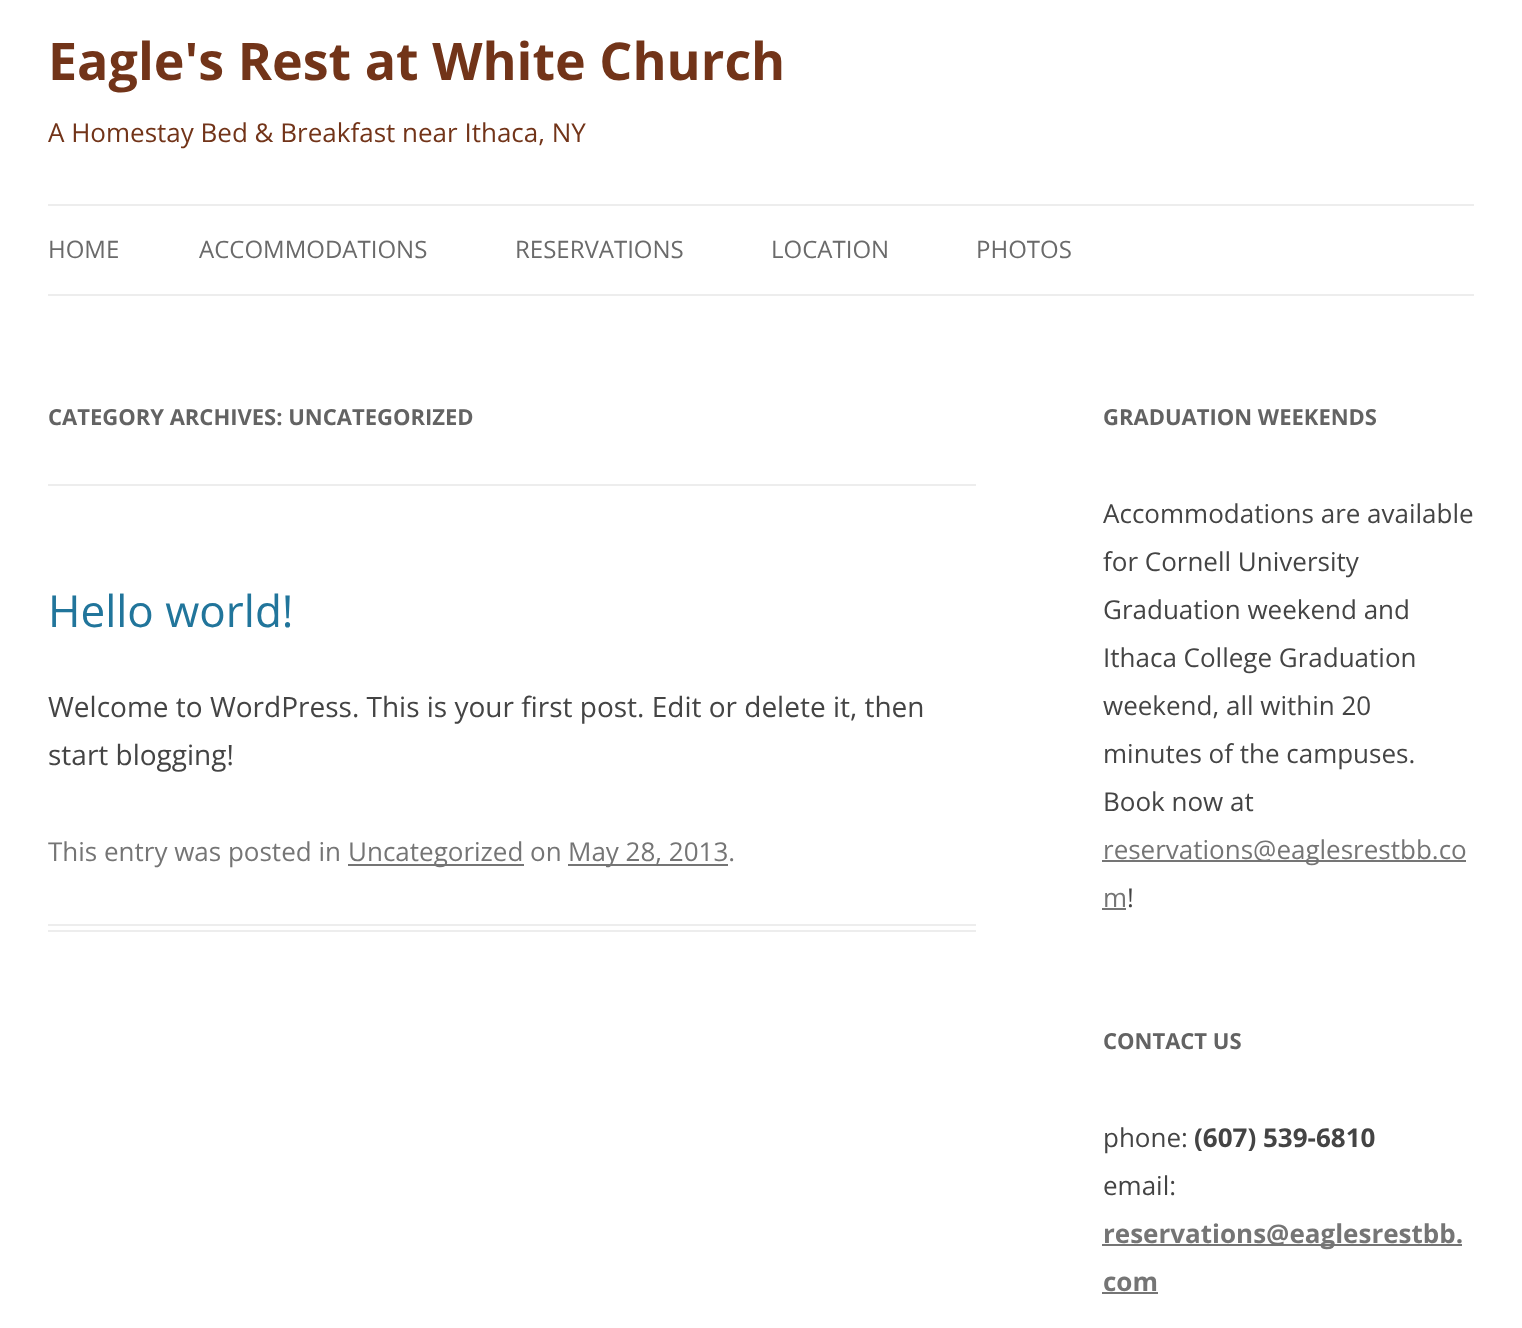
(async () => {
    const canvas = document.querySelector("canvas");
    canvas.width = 1522;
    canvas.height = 1328;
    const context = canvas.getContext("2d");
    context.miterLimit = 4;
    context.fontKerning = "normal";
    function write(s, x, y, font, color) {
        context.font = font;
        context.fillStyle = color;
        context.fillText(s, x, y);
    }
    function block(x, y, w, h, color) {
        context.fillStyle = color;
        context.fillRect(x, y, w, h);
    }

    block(0, 0, 1522, 1328, "rgb(255, 255, 255)");
    write("Eagle's Rest at White Church", 48, 80, "bold 52px Open Sans", "rgb(114, 52, 25)");
    write("A Homestay Bed & Breakfast near Ithaca, NY", 48, 142, "26px Open Sans", "rgb(114, 52, 25)");
    block(48, 204, 1426, 2, "rgb(237, 237, 237)");
    block(48, 294, 1426, 2, "rgb(237, 237, 237)");
    write("HOME", 48, 258, "24px Open Sans", "rgb(106, 106, 106)");
    write("ACCOMMODATIONS", 199, 258, "24px Open Sans", "rgb(106, 106, 106)");
    write("RESERVATIONS", 515, 258, "24px Open Sans", "rgb(106, 106, 106)");
    write("LOCATION", 771, 258, "24px Open Sans", "rgb(106, 106, 106)");
    write("PHOTOS", 976, 258, "24px Open Sans", "rgb(106, 106, 106)");
    block(48, 484, 928, 2, "rgb(237, 237, 237)");
    write("CATEGORY ARCHIVES: UNCATEGORIZED", 48, 425, "bold 22px Open Sans", "rgb(99, 99, 99)");
    block(48, 924, 928, 2, "rgb(237, 237, 237)");
    block(48, 930, 928, 2, "rgb(237, 237, 237)");
    write("Hello world!", 48, 627, "44px Open Sans", "rgb(33, 117, 155)");
    write("Welcome to WordPress. This is your first post. Edit or delete it, then", 48, 717, "28px Open Sans", "rgb(68, 68, 68)");
    write("start blogging!", 48, 765, "28px Open Sans", "rgb(68, 68, 68)");
    write("This entry was posted in", 48, 861, "26px Open Sans", "rgb(117, 117, 117)");
    block(348, 864, 176, 2, "rgb(117, 117, 117)");
    write("Uncategorized on", 348, 861, "26px Open Sans", "rgb(117, 117, 117)");
    block(568, 864, 160, 2, "rgb(117, 117, 117)");
    write("May 28, 2013.", 568, 861, "26px Open Sans", "rgb(117, 117, 117)");
    write("GRADUATION WEEKENDS", 1103, 425, "bold 22px Open Sans", "rgb(99, 99, 99)");
    write("Accommodations are available", 1103, 523, "26px Open Sans", "rgb(68, 68, 68)");
    write("for Cornell University", 1103, 571, "26px Open Sans", "rgb(68, 68, 68)");
    write("Graduation weekend and", 1103, 619, "26px Open Sans", "rgb(68, 68, 68)");
    write("Ithaca College Graduation", 1103, 667, "26px Open Sans", "rgb(68, 68, 68)");
    write("weekend, all within 20", 1103, 715, "26px Open Sans", "rgb(68, 68, 68)");
    write("minutes of the campuses.", 1103, 763, "26px Open Sans", "rgb(68, 68, 68)");
    write("Book now at", 1103, 811, "26px Open Sans", "rgb(68, 68, 68)");
    block(1102, 860, 364, 2, "rgb(117, 117, 117)");
    write("reservations@eaglesrestbb.co", 1103, 859, "26px Open Sans", "rgb(117, 117, 117)");
    write("m", 1103, 907, "26px Open Sans", "rgb(117, 117, 117)");
    block(1102, 908, 24, 2, "rgb(117, 117, 117)");
    write("!", 1127, 907, "26px Open Sans", "rgb(68, 68, 68)");
    write("CONTACT US", 1103, 1049, "bold 22px Open Sans", "rgb(99, 99, 99)");
    write("phone:", 1103, 1147, "26px Open Sans", "rgb(68, 68, 68)");
    write("(607) 539-6810", 1194, 1147, "bold 26px Open Sans", "rgb(68, 68, 68)");
    write("email:", 1103, 1195, "26px Open Sans", "rgb(68, 68, 68)");
    block(1102, 1244, 360, 2, "rgb(117, 117, 117)");
    write("reservations@eaglesrestbb.", 1103, 1243, "bold 26px Open Sans", "rgb(117, 117, 117)");
    write("com", 1103, 1291, "bold 26px Open Sans", "rgb(117, 117, 117)");
    block(1102, 1292, 56, 2, "rgb(117, 117, 117)");
})();
